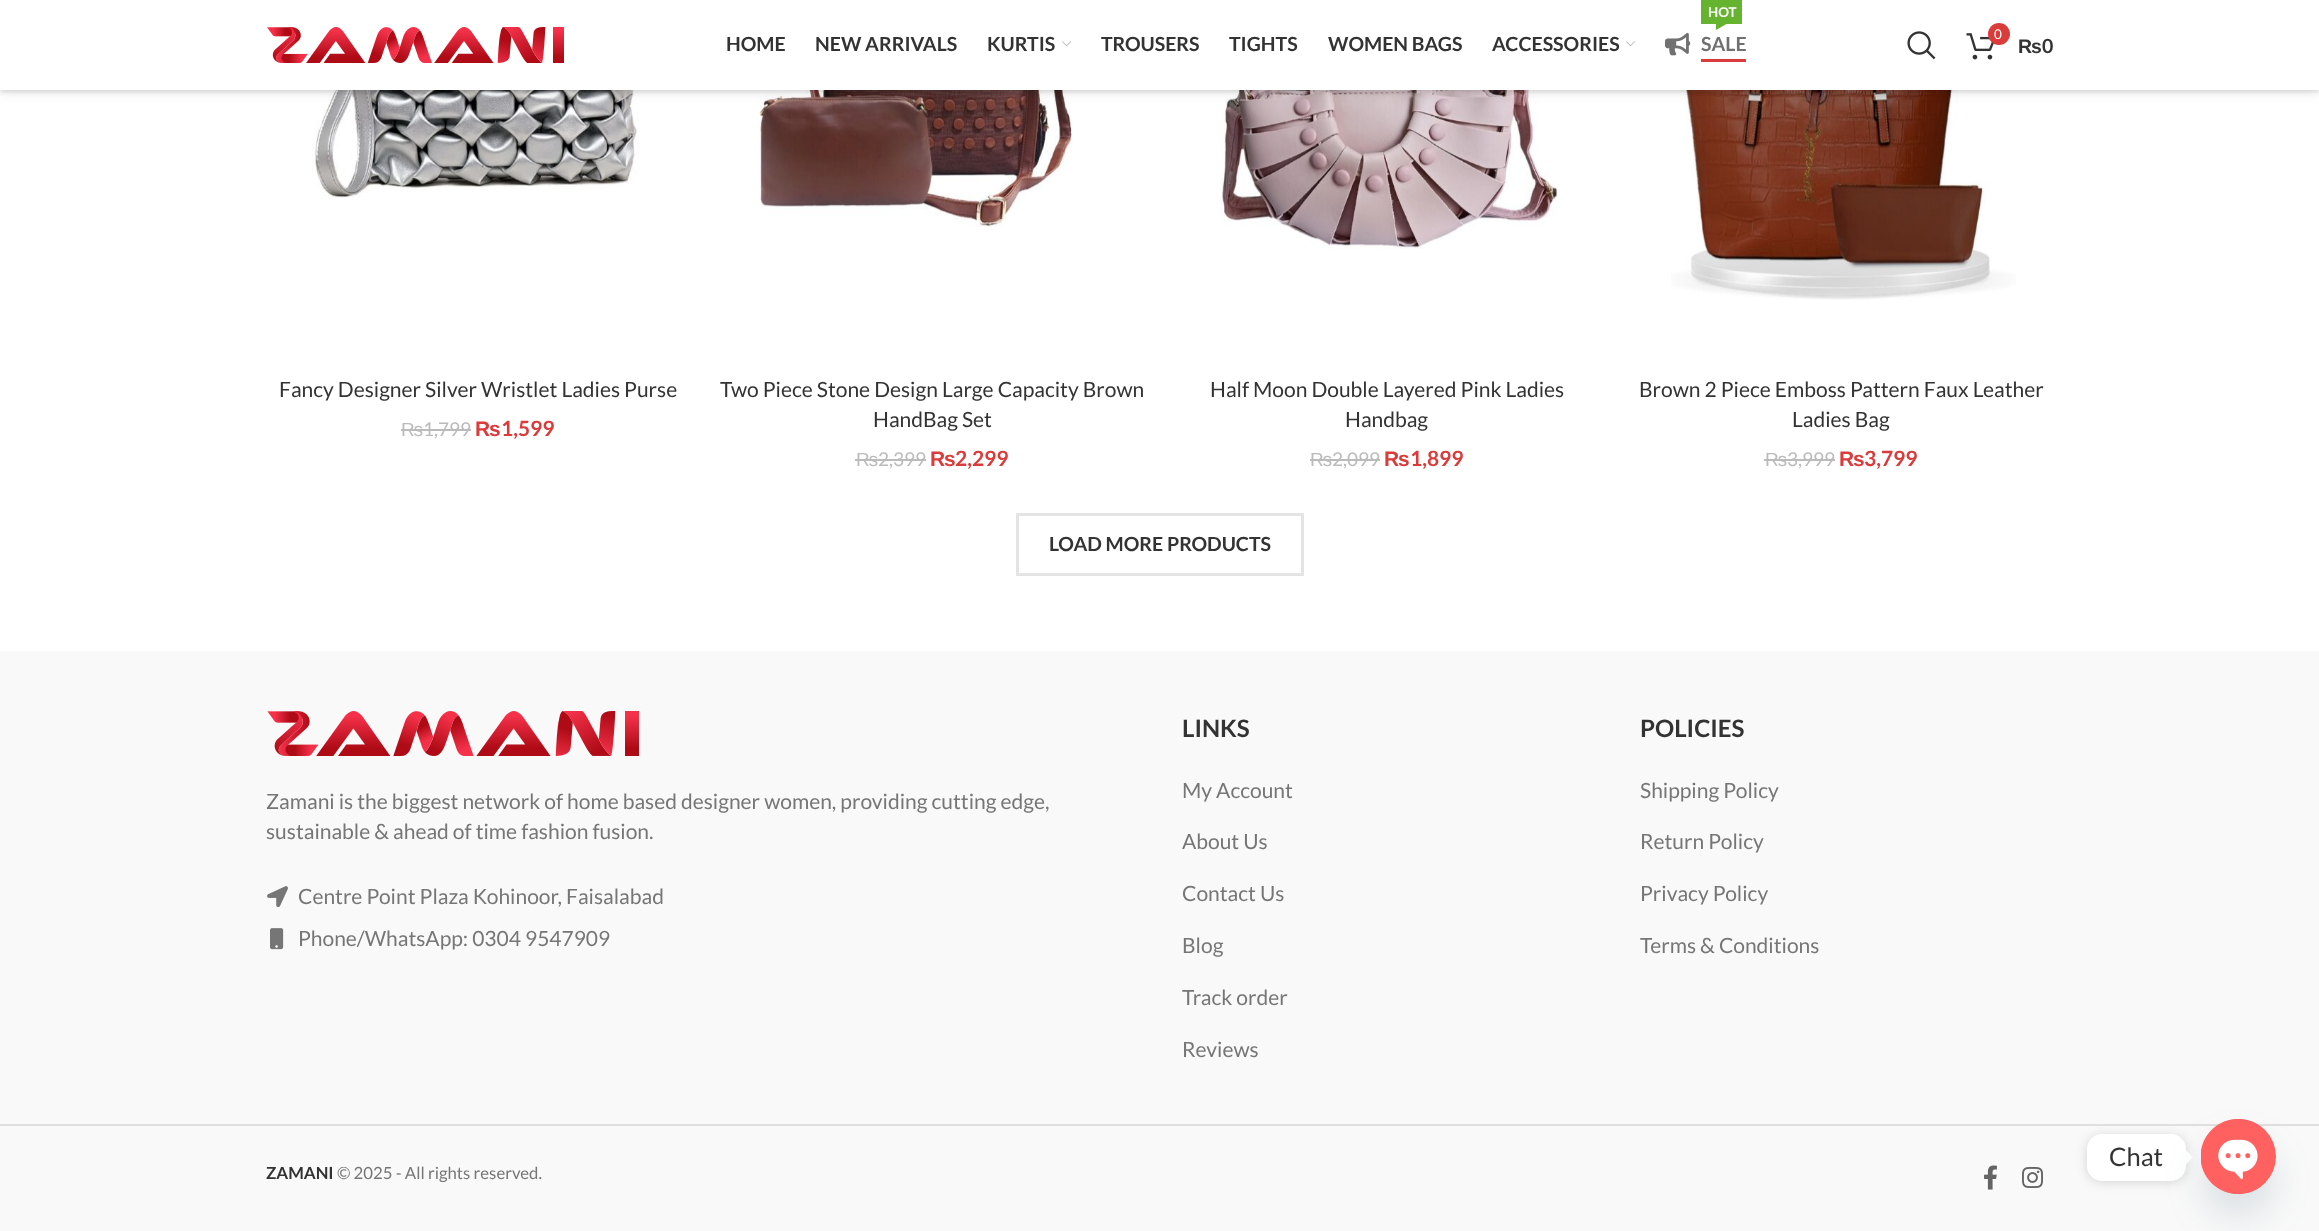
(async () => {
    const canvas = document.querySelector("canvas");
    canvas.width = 2319;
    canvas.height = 1231;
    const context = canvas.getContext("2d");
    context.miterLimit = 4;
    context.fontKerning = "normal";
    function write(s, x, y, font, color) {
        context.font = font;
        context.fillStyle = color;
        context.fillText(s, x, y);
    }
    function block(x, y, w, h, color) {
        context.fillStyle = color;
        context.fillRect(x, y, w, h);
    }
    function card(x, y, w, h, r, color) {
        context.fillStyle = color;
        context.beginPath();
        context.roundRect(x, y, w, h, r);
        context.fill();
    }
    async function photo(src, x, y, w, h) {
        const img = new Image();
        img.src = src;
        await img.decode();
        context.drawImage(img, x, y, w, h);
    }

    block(0, 0, 2319, 1231, "rgb(255, 255, 255)");
    await photo("media/6.png", 312, 90, 329, 108);
    await photo("media/7.png", 754, 90, 318, 137);
    await photo("media/8.png", 1220, 90, 339, 159);
    await photo("media/9.png", 1671, 90, 345, 210);
    context.fillStyle = "rgba(0, 0, 0, 0.1)";
    context.filter = "blur(2px)";
    context.beginPath();
    context.rect(0, 2, 2319, 90);
    context.fill();
    context.filter = "none";
    context.filter = "blur(6px)";
    context.beginPath();
    context.rect(0, 2, 2319, 90);
    context.fill();
    context.filter = "none";
    block(0, 0, 2319, 90, "rgb(255, 255, 255)");
    await photo("media/1.png", 267, 27, 297, 36);
    write("HOME", 726, 51, "bold 19.5px Lato", "rgb(51, 51, 51)");
    write("NEW ARRIVALS", 815, 51, "bold 19.5px Lato", "rgb(51, 51, 51)");
    write("KURTIS", 987, 51, "bold 19.5px Lato", "rgb(51, 51, 51)");
    await photo("media/2.png", 1062, 41, 9, 6);
    write("TROUSERS", 1101, 51, "bold 19.5px Lato", "rgb(51, 51, 51)");
    write("TIGHTS", 1229, 51, "bold 19.5px Lato", "rgb(51, 51, 51)");
    write("WOMEN BAGS", 1328, 51, "bold 19.5px Lato", "rgb(51, 51, 51)");
    write("ACCESSORIES", 1492, 51, "bold 19.5px Lato", "rgb(51, 51, 51)");
    await photo("media/2.png", 1626, 41, 9, 6);
    block(1701, 0, 41, 24, "rgb(101, 179, 46)");
    write("HOT", 1708, 17, "bold 13.5px Lato", "rgb(255, 255, 255)");
    context.fillStyle = "rgb(101, 179, 46)";
    context.beginPath();
    context.moveTo(1716, 24);
    context.lineTo(1726.5, 24);
    context.lineTo(1716, 30);
    context.closePath();
    context.fill();
    await photo("media/3.png", 1665, 32, 26, 24);
    write("SALE", 1701, 51, "bold 19.5px Lato", "rgb(112, 112, 112)");
    block(1701, 59, 45, 3, "rgb(218, 60, 60)");
    await photo("media/4.png", 1907, 31, 29, 29);
    await photo("media/5.png", 1966, 33, 28, 27);
    context.beginPath();
    context.arc(1999, 34, 11, 0, Math.PI * 2);
    context.fill();
    write("0", 1994, 39, "13.5px Lato", "rgb(255, 255, 255)");
    write("₨", 2018, 53, "bold 19.5px Liberation Sans", "rgb(51, 51, 51)");
    write("0", 2042, 53, "bold 19.5px Lato", "rgb(51, 51, 51)");
    write("Fancy Designer Silver Wristlet Ladies Purse", 279, 397, "21px Lato", "rgb(51, 51, 51)");
    write("₨", 401, 436, "19px Liberation Sans", "rgb(187, 187, 187)");
    block(401, 429, 22, 2, "rgb(187, 187, 187)");
    block(423, 429, 48, 2, "rgb(187, 187, 187)");
    write("1,799", 423, 436, "19px Lato", "rgb(187, 187, 187)");
    write("₨", 475, 436, "bold 21px Liberation Sans", "rgb(218, 60, 60)");
    write("1,599", 501, 436, "bold 21px Lato", "rgb(218, 60, 60)");
    write("Two Piece Stone Design Large Capacity Brown", 720, 397, "21px Lato", "rgb(51, 51, 51)");
    write("HandBag Set", 873, 427, "21px Lato", "rgb(51, 51, 51)");
    write("₨", 856, 466, "19px Liberation Sans", "rgb(187, 187, 187)");
    block(855, 459, 23, 2, "rgb(187, 187, 187)");
    block(878, 459, 48, 2, "rgb(187, 187, 187)");
    write("2,399", 878, 466, "19px Lato", "rgb(187, 187, 187)");
    write("₨", 930, 466, "bold 21px Liberation Sans", "rgb(218, 60, 60)");
    write("2,299", 955, 466, "bold 21px Lato", "rgb(218, 60, 60)");
    write("Half Moon Double Layered Pink Ladies", 1210, 397, "21px Lato", "rgb(51, 51, 51)");
    write("Handbag", 1345, 427, "21px Lato", "rgb(51, 51, 51)");
    write("₨", 1310, 466, "19px Liberation Sans", "rgb(187, 187, 187)");
    block(1310, 459, 22, 2, "rgb(187, 187, 187)");
    block(1332, 459, 48, 2, "rgb(187, 187, 187)");
    write("2,099", 1332, 466, "19px Lato", "rgb(187, 187, 187)");
    write("₨", 1384, 466, "bold 21px Liberation Sans", "rgb(218, 60, 60)");
    write("1,899", 1410, 466, "bold 21px Lato", "rgb(218, 60, 60)");
    write("Brown 2 Piece Emboss Pattern Faux Leather", 1639, 397, "21px Lato", "rgb(51, 51, 51)");
    write("Ladies Bag", 1792, 427, "21px Lato", "rgb(51, 51, 51)");
    write("₨", 1765, 466, "19px Liberation Sans", "rgb(187, 187, 187)");
    block(1764, 459, 23, 2, "rgb(187, 187, 187)");
    block(1787, 459, 48, 2, "rgb(187, 187, 187)");
    write("3,999", 1787, 466, "19px Lato", "rgb(187, 187, 187)");
    write("₨", 1839, 466, "bold 21px Liberation Sans", "rgb(218, 60, 60)");
    write("3,799", 1864, 466, "bold 21px Lato", "rgb(218, 60, 60)");
    context.strokeStyle = "rgb(228, 228, 228)";
    context.lineWidth = 3;
    context.strokeRect(1017.5, 514.5, 285, 60);
    write("LOAD MORE PRODUCTS", 1049, 551, "bold 19.5px Lato", "rgb(51, 51, 51)");
    block(0, 651, 2319, 580, "rgb(249, 249, 249)");
    await photo("media/10.png", 267, 711, 372, 45);
    write("Zamani is the biggest network of home based designer women, providing cutting edge,", 266, 809, "21px Lato", "rgb(118, 118, 118)");
    write("sustainable & ahead of time fashion fusion.", 266, 839, "21px Lato", "rgb(118, 118, 118)");
    await photo("media/11.png", 267, 886, 21, 22);
    write("Centre Point Plaza Kohinoor, Faisalabad", 298, 904, "21px Lato", "rgb(118, 118, 118)");
    await photo("media/12.png", 270, 928, 14, 22);
    write("Phone/WhatsApp: 0304 9547909", 298, 946, "21px Lato", "rgb(118, 118, 118)");
    write("LINKS", 1182, 737, "bold 24px Lato", "rgb(51, 51, 51)");
    write("My Account", 1182, 798, "21px Lato", "rgb(118, 118, 118)");
    write("About Us", 1182, 849, "21px Lato", "rgb(118, 118, 118)");
    write("Contact Us", 1182, 901, "21px Lato", "rgb(118, 118, 118)");
    write("Blog", 1182, 953, "21px Lato", "rgb(118, 118, 118)");
    write("Track order", 1182, 1005, "21px Lato", "rgb(118, 118, 118)");
    write("Reviews", 1182, 1057, "21px Lato", "rgb(118, 118, 118)");
    write("POLICIES", 1640, 737, "bold 24px Lato", "rgb(51, 51, 51)");
    write("Shipping Policy", 1640, 798, "21px Lato", "rgb(118, 118, 118)");
    write("Return Policy", 1640, 849, "21px Lato", "rgb(118, 118, 118)");
    write("Privacy Policy", 1640, 901, "21px Lato", "rgb(118, 118, 118)");
    write("Terms & Conditions", 1640, 953, "21px Lato", "rgb(118, 118, 118)");
    block(0, 1124, 2319, 2, "rgb(223, 223, 223)");
    write("ZAMANI", 266, 1179, "bold 16.75px Lato", "rgb(51, 51, 51)");
    write("© 2025 - All rights reserved.", 337, 1179, "16.75px Lato", "rgb(118, 118, 118)");
    await photo("media/13.png", 1984, 1165, 13, 25);
    await photo("media/14.png", 2022, 1167, 21, 21);
    context.fillStyle = "rgba(0, 0, 0, 0.15)";
    context.filter = "blur(6px)";
    context.beginPath();
    context.roundRect(2087, 1136, 99, 46, 15);
    context.fill();
    context.filter = "none";
    card(2087, 1134, 99, 47, 15, "rgb(255, 255, 255)");
    write("Chat", 2109, 1166, "25.5px Lato", "rgb(51, 51, 51)");
    context.fillStyle = "rgb(255, 255, 255)";
    context.beginPath();
    context.moveTo(2185.5, 1165);
    context.lineTo(2185.5, 1150);
    context.lineTo(2193, 1157);
    context.closePath();
    context.fill();
    context.fillStyle = "rgba(73, 104, 126, 0.16)";
    context.filter = "blur(18px)";
    context.beginPath();
    context.roundRect(2201, 1143, 75, 75, 37.5);
    context.fill();
    context.filter = "none";
    context.fillStyle = "rgb(255, 96, 96)";
    context.beginPath();
    context.arc(2238.5, 1156.5, 37.5, 0, Math.PI * 2);
    context.fill();
    await photo("media/15.png", 2201, 1119, 65, 75);
})();
